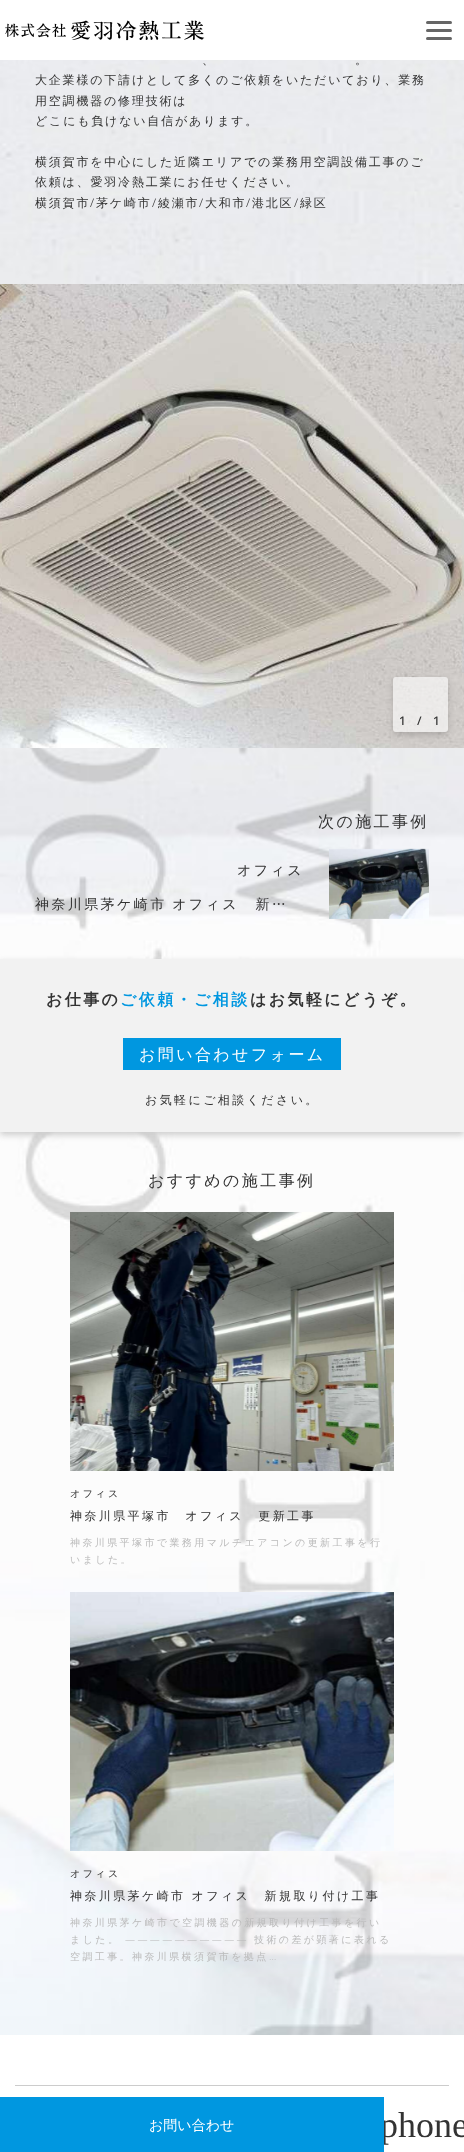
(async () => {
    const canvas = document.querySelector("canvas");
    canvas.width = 464;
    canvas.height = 2152;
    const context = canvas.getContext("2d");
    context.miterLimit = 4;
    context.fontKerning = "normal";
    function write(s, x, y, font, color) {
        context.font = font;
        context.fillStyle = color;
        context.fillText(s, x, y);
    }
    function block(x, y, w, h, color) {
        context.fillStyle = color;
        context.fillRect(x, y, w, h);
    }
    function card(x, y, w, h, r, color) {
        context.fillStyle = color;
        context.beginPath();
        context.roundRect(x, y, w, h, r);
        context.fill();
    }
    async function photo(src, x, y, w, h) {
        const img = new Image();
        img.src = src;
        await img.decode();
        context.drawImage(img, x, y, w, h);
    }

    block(0, 0, 464, 2152, "rgb(255, 255, 255)");
    await photo("media/1.png", 5, 20, 200, 21);
    card(426, 21, 26, 3, 1.5, "rgb(102, 102, 102)");
    card(426, 29, 26, 3, 1.5, "rgb(102, 102, 102)");
    card(426, 37, 26, 3, 1.5, "rgb(102, 102, 102)");
    await photo("media/2.png", 0, 60, 464, 1975);
    context.letterSpacing = "1.8px";
    write("、", 202, 64, "500 12px WenQuanYi Zen Hei", "rgb(51, 51, 51)");
    write("。", 355, 64, "500 12px WenQuanYi Zen Hei", "rgb(51, 51, 51)");
    write("大企業様の下請けとして多くのご依頼をいただいており、業務", 35, 84, "500 12px WenQuanYi Zen Hei", "rgb(51, 51, 51)");
    write("用空調機器の修理技術は", 35, 105, "500 12px WenQuanYi Zen Hei", "rgb(51, 51, 51)");
    write("どこにも負けない自信があります。", 35, 125, "500 12px WenQuanYi Zen Hei", "rgb(51, 51, 51)");
    write("横須賀市を中心にした近隣エリアでの業務用空調設備工事のご", 35, 166, "500 12px WenQuanYi Zen Hei", "rgb(51, 51, 51)");
    write("依頼は、愛羽冷熱工業にお任せください。", 35, 186, "500 12px WenQuanYi Zen Hei", "rgb(51, 51, 51)");
    write("横須賀市", 35, 207, "500 12px WenQuanYi Zen Hei", "rgb(51, 51, 51)");
    write("/", 90, 207, "300 12px Noto Sans", "rgb(51, 51, 51)");
    write("茅ケ崎市", 96, 207, "500 12px WenQuanYi Zen Hei", "rgb(51, 51, 51)");
    write("/", 152, 207, "300 12px Noto Sans", "rgb(51, 51, 51)");
    write("綾瀬市", 158, 207, "500 12px WenQuanYi Zen Hei", "rgb(51, 51, 51)");
    write("/", 199, 207, "300 12px Noto Sans", "rgb(51, 51, 51)");
    write("大和市", 205, 207, "500 12px WenQuanYi Zen Hei", "rgb(51, 51, 51)");
    write("/", 246, 207, "300 12px Noto Sans", "rgb(51, 51, 51)");
    write("港北区", 252, 207, "500 12px WenQuanYi Zen Hei", "rgb(51, 51, 51)");
    write("/", 294, 207, "300 12px Noto Sans", "rgb(51, 51, 51)");
    write("緑区", 300, 207, "500 12px WenQuanYi Zen Hei", "rgb(51, 51, 51)");
    await photo("media/3.png", 0, 284, 464, 464);
    context.save();
    context.beginPath();
    context.moveTo(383, 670);
    context.lineTo(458, 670);
    context.lineTo(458, 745);
    context.lineTo(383, 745);
    context.closePath();
    context.moveTo(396, 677);
    context.lineTo(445, 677);
    context.bezierCurveTo(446.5, 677, 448, 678.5, 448, 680);
    context.lineTo(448, 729);
    context.bezierCurveTo(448, 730.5, 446.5, 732, 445, 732);
    context.lineTo(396, 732);
    context.bezierCurveTo(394.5, 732, 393, 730.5, 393, 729);
    context.lineTo(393, 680);
    context.bezierCurveTo(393, 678.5, 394.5, 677, 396, 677);
    context.closePath();
    context.clip("evenodd");
    context.fillStyle = "rgba(0, 0, 0, 0.16)";
    context.filter = "blur(3px)";
    context.beginPath();
    context.roundRect(393, 680, 55, 55, 3);
    context.fill();
    context.filter = "none";
    context.restore();
    card(393, 677, 55, 55, 3, "rgba(255, 255, 255, 0.6)");
    context.letterSpacing = "2.4px";
    write("1", 399, 725, "500 12px Noto Sans", "rgb(51, 51, 51)");
    write("/", 417, 725, "500 12px Noto Sans", "rgb(51, 51, 51)");
    write("1", 433, 725, "500 12px Noto Sans", "rgb(51, 51, 51)");
    write("次の施工事例", 318, 827, "500 16px WenQuanYi Zen Hei", "rgb(51, 51, 51)");
    write("オフィス", 237, 875, "500 14px WenQuanYi Zen Hei", "rgb(51, 51, 51)");
    context.wordSpacing = "-1px";
    write("神奈川県茅ケ崎市 オフィス　新…", 35, 909, "500 14px WenQuanYi Zen Hei", "rgb(51, 51, 51)");
    await photo("media/4.png", 329, 848, 100, 71);
    context.fillStyle = "rgb(204, 204, 204)";
    context.filter = "blur(3px)";
    context.beginPath();
    context.rect(0, 962, 464, 173);
    context.fill();
    context.filter = "none";
    block(0, 959, 464, 173, "rgb(242, 242, 242)");
    context.wordSpacing = "0px";
    write("お仕事の", 46, 1005, "bold 16px WenQuanYi Zen Hei", "rgb(51, 51, 51)");
    write("ご依頼・ご相談", 120, 1005, "bold 16px WenQuanYi Zen Hei", "rgb(0, 151, 224)");
    write("はお気軽にどうぞ。", 250, 1005, "bold 16px WenQuanYi Zen Hei", "rgb(51, 51, 51)");
    block(123, 1038, 218, 32, "rgb(0, 151, 224)");
    write("お問い合わせフォーム", 139, 1060, "500 16px WenQuanYi Zen Hei", "rgb(255, 255, 255)");
    write("お気軽にご相談ください。", 145, 1104, "500 12px WenQuanYi Zen Hei", "rgb(51, 51, 51)");
    write("おすすめの施工事例", 148, 1186, "500 16px WenQuanYi Zen Hei", "rgb(51, 51, 51)");
    await photo("media/5.png", 70, 1212, 324, 259);
    write("オフィス", 70, 1497, "500 10px WenQuanYi Zen Hei", "rgb(51, 51, 51)");
    write("神奈川県平塚市　オフィス　更新工事", 70, 1520, "500 12px WenQuanYi Zen Hei", "rgb(51, 51, 51)");
    write("神奈川県平塚市で業務用マルチエアコンの更新工事を行", 70, 1546, "500 10px WenQuanYi Zen Hei", "rgb(186, 186, 186)");
    write("いました。", 70, 1563, "500 10px WenQuanYi Zen Hei", "rgb(186, 186, 186)");
    await photo("media/6.png", 70, 1592, 324, 259);
    write("オフィス", 70, 1877, "500 10px WenQuanYi Zen Hei", "rgb(51, 51, 51)");
    write("神奈川県茅ケ崎市 オフィス　新規取り付け工事", 70, 1900, "500 12px WenQuanYi Zen Hei", "rgb(51, 51, 51)");
    write("神奈川県茅ケ崎市で空調機器の新規取り付け工事を行い", 70, 1926, "500 10px WenQuanYi Zen Hei", "rgb(186, 186, 186)");
    write("ました。", 70, 1943, "500 10px WenQuanYi Zen Hei", "rgb(186, 186, 186)");
    write("――――――――――", 125, 1943, "300 10px Noto Sans", "rgb(186, 186, 186)");
    write("技術の差が顕著に表れる", 254, 1943, "500 10px WenQuanYi Zen Hei", "rgb(186, 186, 186)");
    write("空調工事。神奈川県横須賀市を拠点", 70, 1960, "500 10px WenQuanYi Zen Hei", "rgb(186, 186, 186)");
    write("…", 269, 1960, "300 10px Noto Sans", "rgb(186, 186, 186)");
    block(15, 2085, 434, 1, "rgb(204, 204, 204)");
    context.letterSpacing = "0px";
    write("phone", 380, 2137, "36px Liberation Serif", "rgb(51, 51, 51)");
    block(0, 2097, 384, 55, "rgb(0, 151, 224)");
    write("お問い合わせ", 149, 2130, "500 14px WenQuanYi Zen Hei", "rgb(255, 255, 255)");
})();
